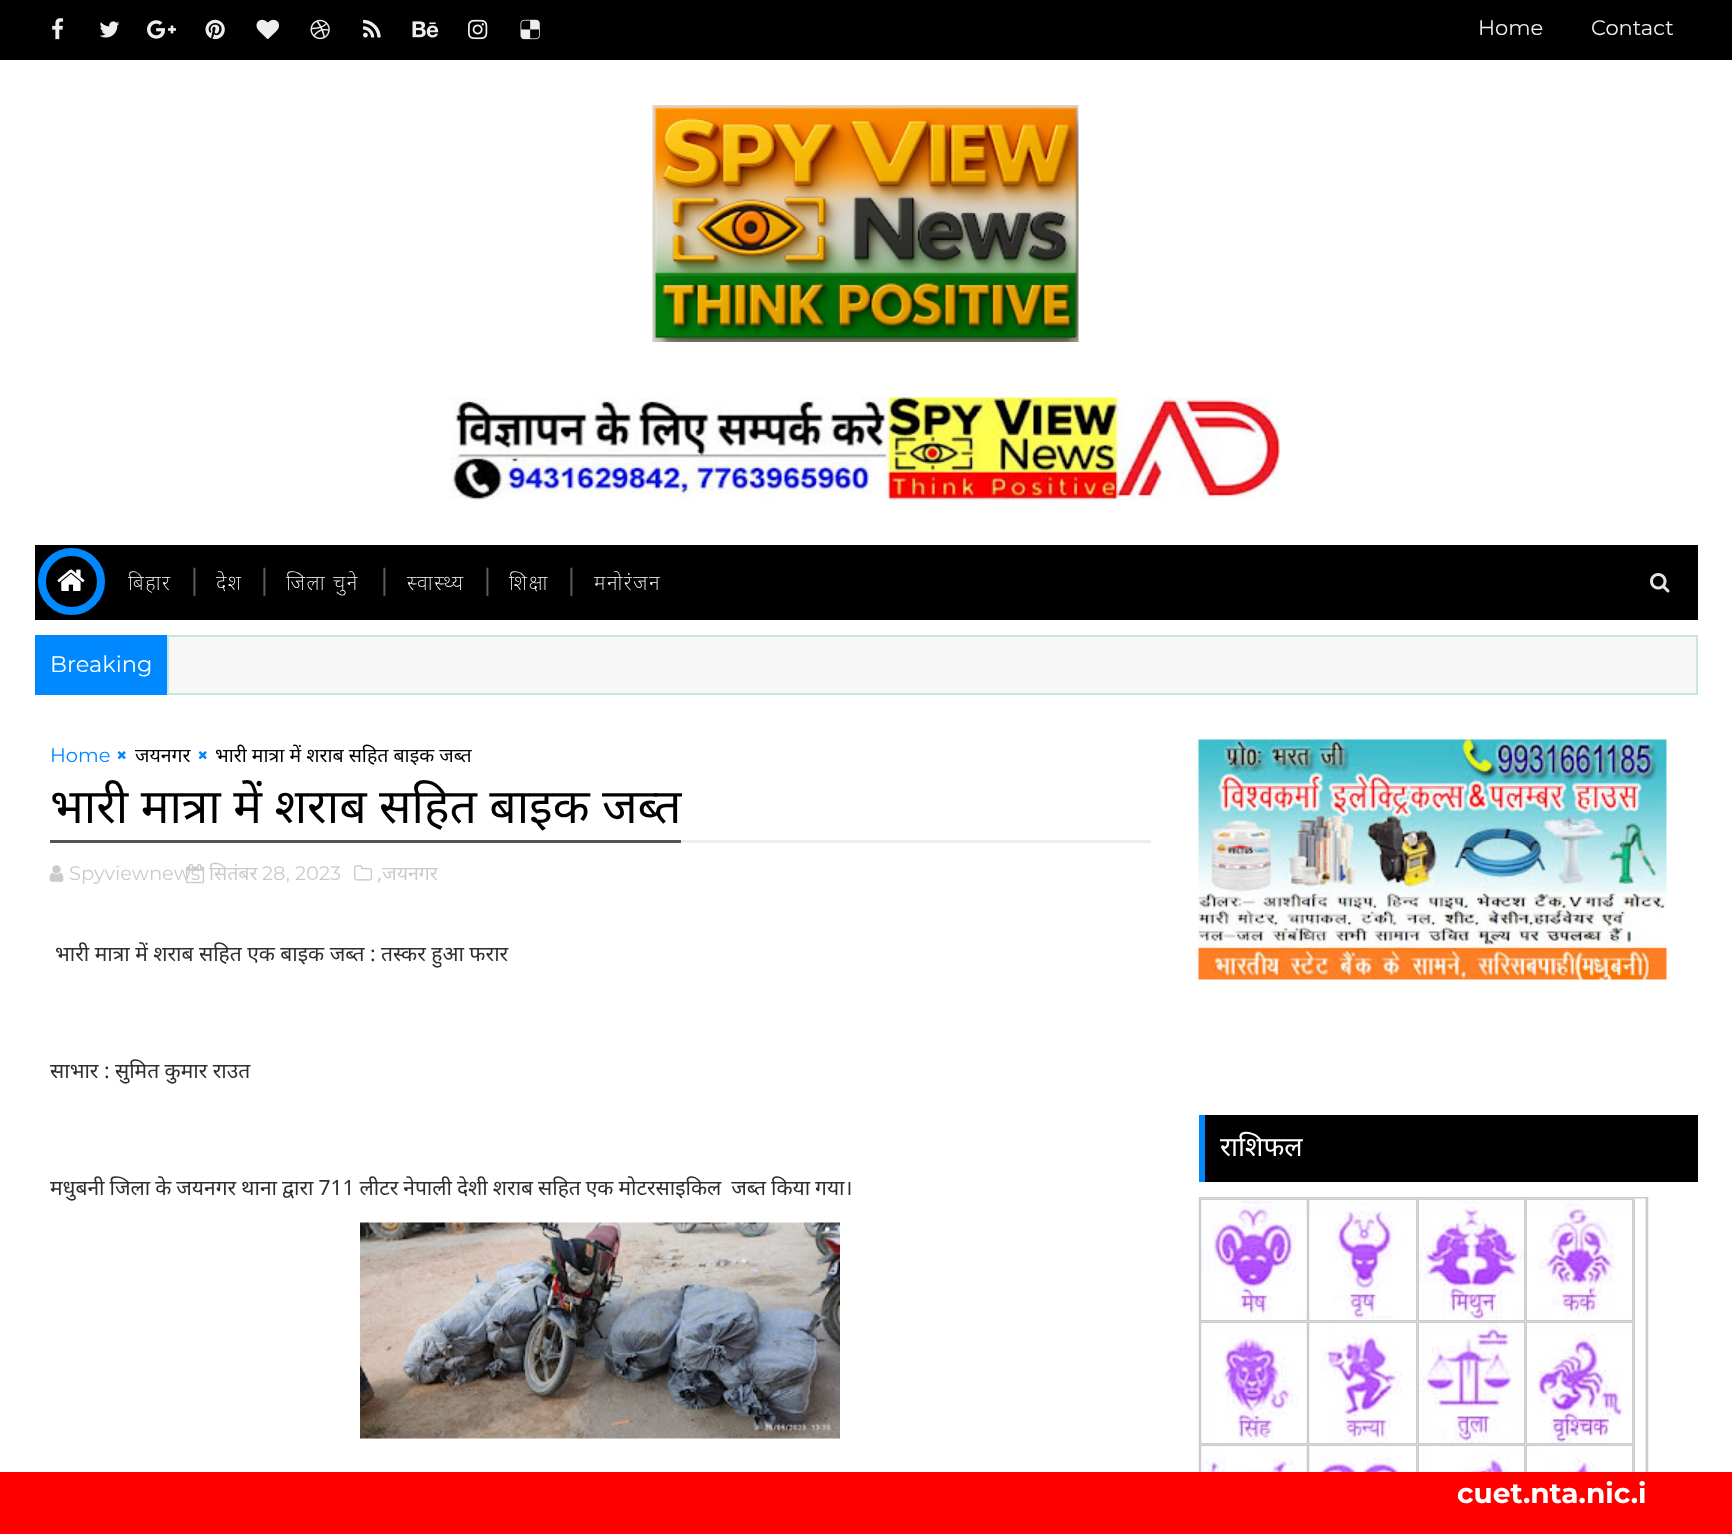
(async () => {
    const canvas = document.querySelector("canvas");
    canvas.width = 1732;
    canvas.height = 1534;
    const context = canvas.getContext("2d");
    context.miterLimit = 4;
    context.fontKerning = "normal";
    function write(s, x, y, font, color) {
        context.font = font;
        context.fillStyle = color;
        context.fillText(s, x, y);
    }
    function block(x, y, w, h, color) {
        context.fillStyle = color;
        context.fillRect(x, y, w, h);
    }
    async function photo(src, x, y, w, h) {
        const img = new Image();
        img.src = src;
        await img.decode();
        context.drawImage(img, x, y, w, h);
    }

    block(0, 0, 1732, 1534, "rgb(255, 255, 255)");
    block(0, 0, 1732, 60, "rgb(0, 0, 0)");
    await photo("media/1.png", 52, 18, 12, 22);
    await photo("media/2.png", 99, 21, 21, 17);
    await photo("media/3.png", 147, 20, 29, 19);
    await photo("media/4.png", 205, 19, 20, 21);
    await photo("media/5.png", 256, 19, 23, 21);
    await photo("media/6.png", 310, 19, 20, 21);
    await photo("media/7.png", 363, 19, 18, 19);
    await photo("media/8.png", 412, 21, 27, 17);
    await photo("media/9.png", 468, 19, 20, 21);
    await photo("media/10.png", 520, 19, 20, 21);
    write("Home", 1478, 35, "21px Montserrat", "rgb(238, 238, 238)");
    write("Contact", 1591, 35, "21px Montserrat", "rgb(238, 238, 238)");
    await photo("media/11.png", 652, 105, 427, 237);
    await photo("media/12.png", 451, 397, 829, 103);
    block(35, 545, 1663, 75, "rgb(0, 0, 0)");
    context.beginPath();
    context.arc(71.5, 581.5, 29.5, 0, Math.PI * 2);
    context.strokeStyle = "rgb(0, 136, 255)";
    context.lineWidth = 8;
    context.stroke();
    await photo("media/13.png", 57, 569, 28, 22);
    context.letterSpacing = "1.5px";
    write("बिहार", 128, 590, "200 21px Noto Sans", "rgb(255, 255, 255)");
    context.letterSpacing = "0px";
    write("|", 190, 590, "30px Montserrat", "rgb(92, 92, 92)");
    context.letterSpacing = "1.5px";
    write("देश", 216, 590, "200 21px Noto Sans", "rgb(255, 255, 255)");
    context.letterSpacing = "0px";
    write("|", 260, 590, "30px Montserrat", "rgb(92, 92, 92)");
    context.letterSpacing = "1.5px";
    write("जिला चुने", 286, 590, "200 21px Noto Sans", "rgb(255, 255, 255)");
    context.letterSpacing = "0px";
    write("|", 380, 590, "30px Montserrat", "rgb(92, 92, 92)");
    context.letterSpacing = "1.5px";
    write("स्वास्थ्य", 407, 590, "200 21px Noto Sans", "rgb(255, 255, 255)");
    context.letterSpacing = "0px";
    write("|", 483, 590, "30px Montserrat", "rgb(92, 92, 92)");
    context.letterSpacing = "1.5px";
    write("शिक्षा", 509, 590, "200 21px Noto Sans", "rgb(255, 255, 255)");
    context.letterSpacing = "0px";
    write("|", 567, 590, "30px Montserrat", "rgb(92, 92, 92)");
    context.letterSpacing = "1.5px";
    write("मनोरंजन", 594, 590, "200 21px Noto Sans", "rgb(255, 255, 255)");
    await photo("media/14.png", 1650, 573, 20, 20);
    block(35, 635, 132, 60, "rgb(0, 136, 255)");
    context.letterSpacing = "0px";
    write("Breaking", 50, 672, "22.5px Montserrat", "rgb(255, 255, 255)");
    context.fillStyle = "rgb(247, 247, 247)";
    context.beginPath();
    context.rect(168, 636, 1529, 58);
    context.fill();
    context.strokeStyle = "rgb(196, 233, 218)";
    context.lineWidth = 2;
    context.stroke();
    write("Home", 50, 762, "19.5px Montserrat", "rgb(0, 136, 255)");
    await photo("media/15.png", 117, 751, 9, 9);
    write("जयनगर", 135, 762, "19.5px Noto Sans", "rgb(0, 0, 0)");
    await photo("media/15.png", 198, 751, 9, 9);
    write("भारी मात्रा में शराब सहित बाइक जब्त", 215, 762, "19.5px Noto Sans", "rgb(0, 0, 0)");
    block(681, 840, 470, 3, "rgb(238, 238, 238)");
    block(50, 840, 631, 3, "rgb(85, 85, 85)");
    write("भारी मात्रा में शराब सहित बाइक जब्त", 50, 823, "48px Noto Sans", "rgb(0, 0, 0)");
    await photo("media/16.png", 49, 865, 15, 17);
    write("Spyviewnews", 69, 880, "19.5px Montserrat", "rgb(203, 203, 203)");
    await photo("media/17.png", 186, 863, 19, 21);
    write("सितंबर", 209, 880, "19.5px Noto Sans", "rgb(203, 203, 203)");
    write("28, 2023", 262, 880, "19.5px Montserrat", "rgb(203, 203, 203)");
    await photo("media/18.png", 354, 865, 19, 16);
    write(",जयनगर", 377, 880, "19.5px Noto Sans", "rgb(203, 203, 203)");
    write("भारी मात्रा में शराब सहित एक बाइक जब्त : तस्कर हुआ फरार", 55, 961, "21px Noto Sans", "rgb(46, 46, 46)");
    write("साभार : सुमित कुमार राउत", 50, 1078, "21px Noto Sans", "rgb(46, 46, 46)");
    context.wordSpacing = "-0.5px";
    write("मधुबनी जिला के जयनगर थाना द्वारा 711 लीटर नेपाली देशी शराब सहित एक मोटरसाइकिल  जब्त किया गया।", 50, 1195, "21px Noto Sans", "rgb(46, 46, 46)");
    await photo("media/19.png", 360, 1222, 480, 217);
    await photo("media/20.png", 1198, 739, 469, 241);
    block(1205, 1115, 493, 67, "rgb(0, 0, 0)");
    block(1199, 1115, 6, 67, "rgb(0, 136, 255)");
    context.wordSpacing = "0px";
    write("राशिफल", 1220, 1156, "27px Noto Sans", "rgb(255, 255, 255)");
    await photo("media/21.png", 1198, 1197, 451, 275);
    block(0, 1472, 1732, 62, "rgb(255, 0, 0)");
    write("cuet.nta.nic.i", 1457, 1503, "bold 28px Montserrat", "rgb(255, 255, 255)");
})();
